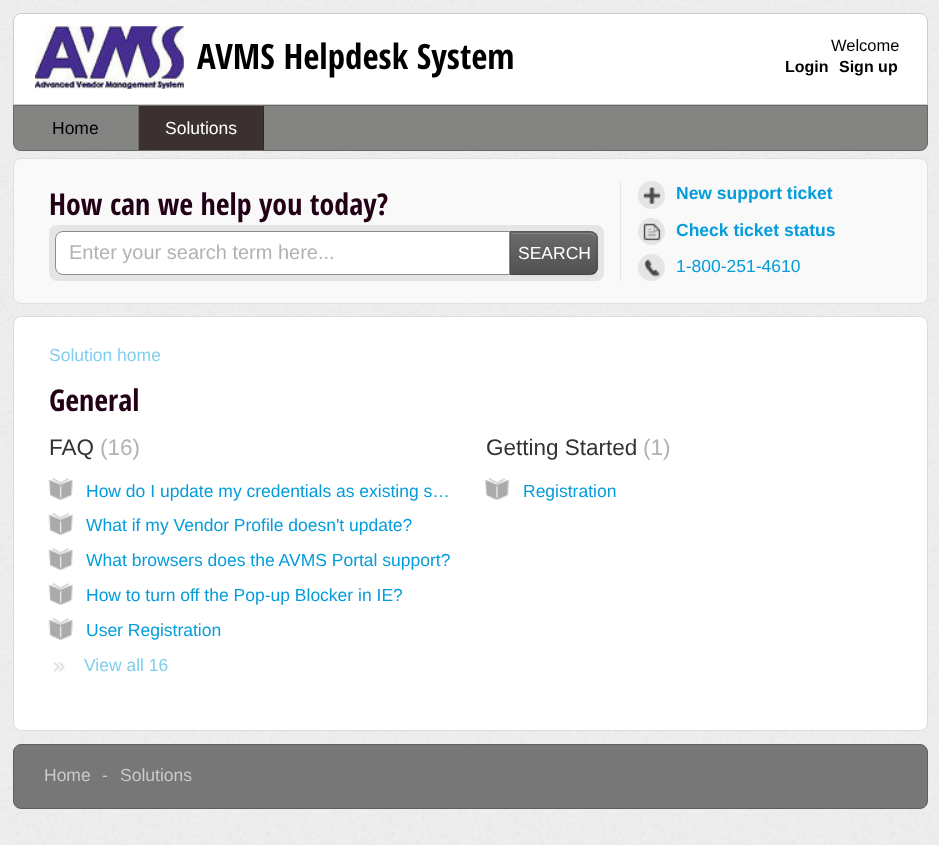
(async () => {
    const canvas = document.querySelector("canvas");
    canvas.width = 939;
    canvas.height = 845;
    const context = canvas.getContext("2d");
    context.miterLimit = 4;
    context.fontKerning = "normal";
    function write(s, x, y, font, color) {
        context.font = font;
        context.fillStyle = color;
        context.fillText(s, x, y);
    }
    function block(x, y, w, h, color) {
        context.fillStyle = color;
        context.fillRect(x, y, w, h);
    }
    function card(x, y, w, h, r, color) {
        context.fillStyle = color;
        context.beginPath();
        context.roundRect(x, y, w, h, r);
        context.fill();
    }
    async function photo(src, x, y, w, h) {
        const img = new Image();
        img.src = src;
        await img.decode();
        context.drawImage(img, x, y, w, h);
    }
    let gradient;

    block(0, 0, 939, 845, "rgb(239, 239, 239)");
    await photo("media/1.png", 0, 0, 939, 845);
    context.fillStyle = "rgb(255, 255, 255)";
    context.beginPath();
    context.roundRect(13, 13, 915, 92, [8, 8, 0, 0]);
    context.fill();
    context.beginPath();
    context.roundRect(13.5, 13.5, 914, 91, [7.5, 7.5, 0, 0]);
    context.strokeStyle = "rgba(0, 0, 0, 0.2)";
    context.stroke();
    await photo("media/2.png", 35, 26, 149, 63);
    write("AVMS Helpdesk System", 197, 69, "bold 35px Open Sans Condensed", "rgb(0, 0, 0)");
    write("Welcome", 831, 51, "16.5px Liberation Sans", "rgb(0, 0, 0)");
    write("Login", 785, 72, "bold 16px Liberation Sans", "rgb(0, 0, 0)");
    write("Sign up", 839, 72, "bold 16px Liberation Sans", "rgb(0, 0, 0)");
    context.fillStyle = "rgb(132, 132, 130)";
    context.beginPath();
    context.roundRect(13, 105, 915, 46, [0, 0, 8, 8]);
    context.fill();
    context.beginPath();
    context.roundRect(13.5, 105.5, 914, 45, [0, 0, 7.5, 7.5]);
    context.stroke();
    block(138, 106, 1, 44, "rgb(106, 106, 104)");
    write("Home", 52, 134, "17.5px Liberation Sans", "rgb(0, 0, 0)");
    block(139, 106, 124, 44, "rgb(59, 49, 49)");
    block(263, 106, 1, 44, "rgb(47, 39, 39)");
    write("Solutions", 165, 134, "17.5px Liberation Sans", "rgb(255, 255, 255)");
    context.fillStyle = "rgb(249, 249, 249)";
    context.beginPath();
    context.roundRect(13.5, 158.5, 914, 145, 7.5);
    context.fill();
    context.strokeStyle = "rgb(224, 224, 224)";
    context.stroke();
    block(620, 181, 1, 100, "rgb(229, 229, 229)");
    write("How can we help you today?", 49, 215, "bold 30px Open Sans Condensed", "rgb(34, 0, 21)");
    card(49, 225, 555, 56, 8, "rgb(229, 229, 229)");
    context.fillStyle = "rgb(255, 255, 255)";
    context.beginPath();
    context.roundRect(55.5, 231.5, 454, 43, [7.5, 0, 0, 7.5]);
    context.fill();
    context.strokeStyle = "rgb(140, 140, 140)";
    context.stroke();
    write("Enter your search term here...", 69, 259, "20px Liberation Sans", "rgb(178, 178, 178)");
    context.fillStyle = "rgba(0, 0, 0, 0.05)";
    context.filter = "blur(1px)";
    context.beginPath();
    context.roundRect(510, 233, 88, 43, 8);
    context.fill();
    context.filter = "none";
    context.fillStyle = "rgb(98, 96, 96)";
    context.beginPath();
    context.roundRect(510, 231, 88, 44, [0, 8, 8, 0]);
    context.fill();
    context.save();
    context.beginPath();
    context.roundRect(510, 231, 88, 44, [0, 8, 8, 0]);
    context.clip();
    gradient = context.createLinearGradient(554, 233, 554, 274);
    gradient.addColorStop(0, "rgb(108, 106, 106)");
    gradient.addColorStop(1, "rgb(82, 81, 81)");
    context.fillStyle = gradient;
    context.fillRect(510, 233, 88, 41);
    context.restore();
    context.fillStyle = "rgb(137, 136, 136)";
    context.beginPath();
    context.moveTo(511, 234);
    context.lineTo(590, 234);
    context.bezierCurveTo(593, 234, 596, 237, 596, 240);
    context.lineTo(596, 239);
    context.bezierCurveTo(596, 236, 593, 233, 590, 233);
    context.lineTo(511, 233);
    context.closePath();
    context.fill();
    context.fillStyle = "rgba(0, 0, 0, 0.1)";
    context.beginPath();
    context.moveTo(511, 232);
    context.lineTo(510, 231);
    context.lineTo(592, 231);
    context.lineTo(595, 233);
    context.lineTo(594, 234);
    context.bezierCurveTo(593, 233, 592, 232, 590, 232);
    context.closePath();
    context.fill();
    context.beginPath();
    context.moveTo(597.5, 270.5);
    context.lineTo(595.5, 273);
    context.lineTo(594.5, 272);
    context.bezierCurveTo(595.5, 271, 596, 269.5, 596, 268);
    context.lineTo(596, 239);
    context.bezierCurveTo(596, 237, 595.5, 235.5, 594.5, 234.5);
    context.lineTo(595.5, 233.5);
    context.bezierCurveTo(596.5, 234.5, 597, 235.5, 597.5, 236.5);
    context.closePath();
    context.fill();
    context.fillStyle = "rgba(0, 0, 0, 0.25)";
    context.beginPath();
    context.moveTo(590, 275);
    context.bezierCurveTo(592, 275, 594, 274, 596, 273);
    context.lineTo(594, 272);
    context.bezierCurveTo(593, 273, 592, 274, 590, 274);
    context.lineTo(511, 274);
    context.lineTo(510, 275);
    context.closePath();
    context.fill();
    context.fillStyle = "rgba(0, 0, 0, 0.1)";
    context.beginPath();
    context.moveTo(510, 275);
    context.lineTo(511, 274);
    context.lineTo(511, 232);
    context.lineTo(510, 231);
    context.closePath();
    context.fill();
    write("SEARCH", 518, 259, "17.5px Liberation Sans", "rgb(255, 255, 255)");
    card(638, 181, 27, 28, 13.5, "rgb(229, 229, 229)");
    await photo("media/3.png", 642, 186, 19, 18);
    write("New support ticket", 676, 199, "bold 17.5px Liberation Sans", "rgb(4, 156, 219)");
    context.fillStyle = "rgb(229, 229, 229)";
    context.beginPath();
    context.arc(651.5, 231.5, 13.5, 0, Math.PI * 2);
    context.fill();
    await photo("media/4.png", 642, 222, 19, 19);
    write("Check ticket status", 676, 236, "bold 17.5px Liberation Sans", "rgb(4, 156, 219)");
    context.fillStyle = "rgb(229, 229, 229)";
    context.beginPath();
    context.arc(651.5, 267.5, 13.5, 0, Math.PI * 2);
    context.fill();
    await photo("media/5.png", 644, 258, 17, 19);
    write("1-800-251-4610", 676, 272, "17.5px Liberation Sans", "rgb(4, 156, 219)");
    context.fillStyle = "rgb(255, 255, 255)";
    context.beginPath();
    context.roundRect(13.5, 316.5, 914, 414, 7.5);
    context.fill();
    context.strokeStyle = "rgb(220, 220, 220)";
    context.stroke();
    write("Solution home", 49, 361, "17.5px Liberation Sans", "rgb(130, 206, 237)");
    write("General", 49, 411, "bold 30px Open Sans Condensed", "rgb(34, 0, 21)");
    write("FAQ", 49, 455, "22.5px Liberation Sans", "rgb(51, 51, 51)");
    write("(16)", 100, 455, "22.5px Liberation Sans", "rgb(178, 178, 178)");
    await photo("media/6.png", 48, 477, 25, 23);
    write("How do I update my credentials as existing s…", 86, 497, "17.5px Liberation Sans", "rgb(4, 156, 219)");
    await photo("media/7.png", 48, 512, 25, 23);
    write("What if my Vendor Profile doesn't update?", 86, 531, "17.5px Liberation Sans", "rgb(4, 156, 219)");
    await photo("media/6.png", 48, 547, 25, 23);
    write("What browsers does the AVMS Portal support?", 86, 566, "17.5px Liberation Sans", "rgb(4, 156, 219)");
    await photo("media/8.png", 48, 582, 25, 23);
    write("How to turn off the Pop-up Blocker in IE?", 86, 601, "17.5px Liberation Sans", "rgb(4, 156, 219)");
    await photo("media/6.png", 48, 617, 25, 23);
    write("User Registration", 86, 636, "17.5px Liberation Sans", "rgb(4, 156, 219)");
    await photo("media/9.png", 53, 662, 12, 10);
    write("View all 16", 84, 671, "17.5px Liberation Sans", "rgb(130, 206, 237)");
    write("Getting Started", 486, 455, "22.5px Liberation Sans", "rgb(51, 51, 51)");
    write("(1)", 643, 455, "22.5px Liberation Sans", "rgb(178, 178, 178)");
    await photo("media/10.png", 485, 477, 24, 23);
    write("Registration", 523, 497, "17.5px Liberation Sans", "rgb(4, 156, 219)");
    context.fillStyle = "rgb(119, 119, 119)";
    context.beginPath();
    context.roundRect(13.5, 744.5, 914, 64, 7.5);
    context.fill();
    context.strokeStyle = "rgb(94, 94, 94)";
    context.stroke();
    write("Home", 44, 781, "17.5px Liberation Sans", "rgb(201, 201, 201)");
    write("-", 102, 781, "17.5px Liberation Sans", "rgb(201, 201, 201)");
    write("Solutions", 120, 781, "17.5px Liberation Sans", "rgb(201, 201, 201)");
})();
